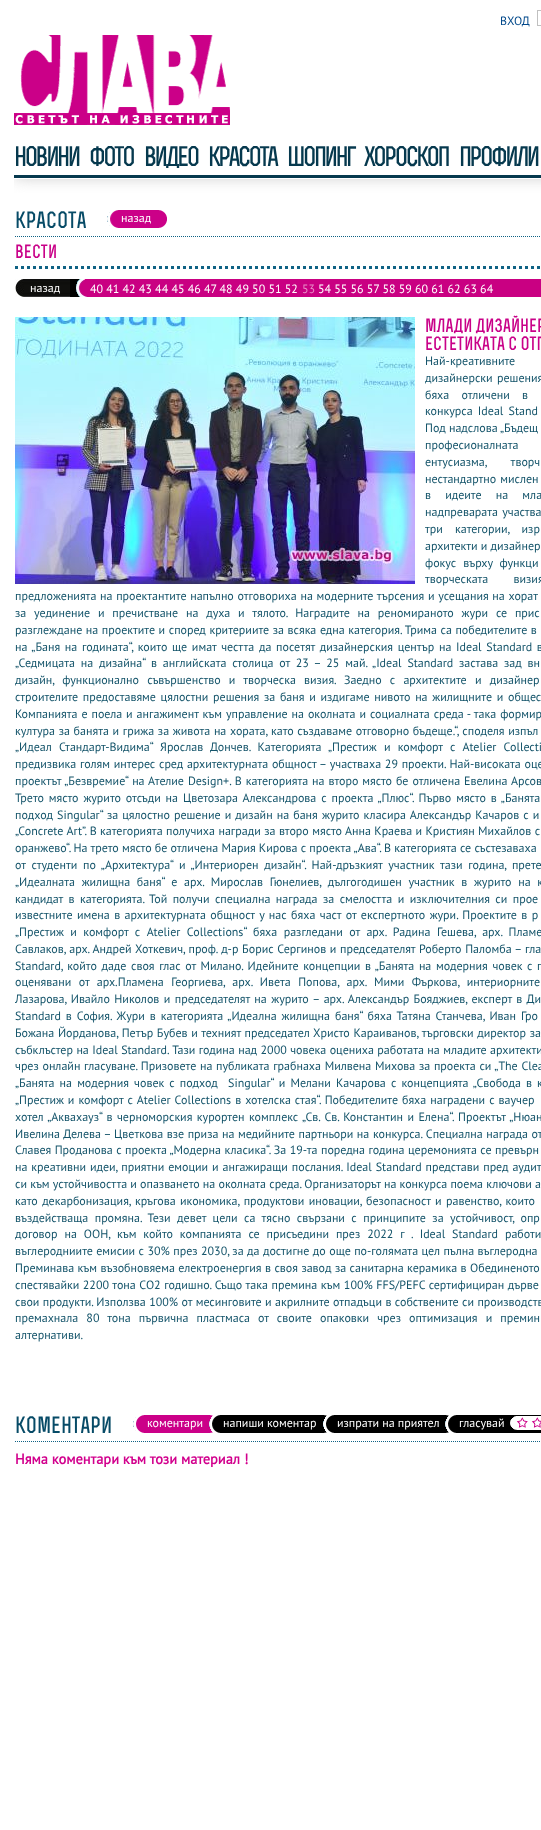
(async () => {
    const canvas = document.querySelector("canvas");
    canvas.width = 541;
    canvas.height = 1830;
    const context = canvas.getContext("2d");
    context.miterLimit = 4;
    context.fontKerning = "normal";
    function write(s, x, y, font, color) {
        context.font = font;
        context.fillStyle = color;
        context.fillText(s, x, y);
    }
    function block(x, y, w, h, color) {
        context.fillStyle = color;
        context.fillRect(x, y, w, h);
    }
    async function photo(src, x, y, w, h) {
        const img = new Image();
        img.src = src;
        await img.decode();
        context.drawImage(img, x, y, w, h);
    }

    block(0, 0, 541, 1830, "rgb(255, 255, 255)");
    write("ВХОД", 500, 25, "12px PT Sans", "rgb(1, 72, 138)");
    context.strokeStyle = "rgb(192, 192, 192)";
    context.strokeRect(537.5, 10.5, 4, 15);
    context.save();
    context.beginPath();
    context.rect(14, 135, 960, 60);
    context.clip();
    context.beginPath();
    context.rect(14, 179, 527, 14);
    context.clip();
    context.fillStyle = "rgb(204, 204, 204)";
    context.filter = "blur(7.5px)";
    context.beginPath();
    context.rect(14, 135, 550, 43);
    context.fill();
    context.filter = "none";
    context.restore();
    await photo("media/1.png", 14, 35, 216, 90);
    block(14, 178, 527, 1, "rgb(255, 255, 255)");
    block(14, 175, 527, 3, "rgb(6, 57, 78)");
    context.letterSpacing = "-2.5px";
    write("новини", 14, 166, "bold 26.5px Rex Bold", "rgb(6, 57, 78)");
    write("фото", 89, 166, "bold 26.5px Rex Bold", "rgb(6, 57, 78)");
    write("видео", 144, 166, "bold 26.5px Rex Bold", "rgb(6, 57, 78)");
    write("красота", 208, 166, "bold 26.5px Rex Bold", "rgb(6, 57, 78)");
    write("шопинг", 287, 166, "bold 26.5px Rex Bold", "rgb(6, 57, 78)");
    write("хороскоп", 364, 166, "bold 26.5px Rex Bold", "rgb(6, 57, 78)");
    write("профили", 459, 166, "bold 26.5px Rex Bold", "rgb(6, 57, 78)");
    context.beginPath();
    context.moveTo(15, 236.5);
    context.lineTo(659, 236.5);
    context.strokeStyle = "rgb(15, 98, 132)";
    context.setLineDash([1, 1]);
    context.stroke();
    context.letterSpacing = "0px";
    write("красота", 15, 228, "bold 22px Rex Bold", "rgb(7, 75, 103)");
    await photo("media/2.png", 107, 210, 51, 18);
    await photo("media/3.png", 158, 210, 9, 18);
    write("назад", 121, 222, "12px PT Sans", "rgb(255, 255, 255)");
    context.beginPath();
    context.moveTo(15, 267.5);
    context.lineTo(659, 267.5);
    context.lineWidth = 3;
    context.setLineDash([3, 3]);
    context.stroke();
    write("вести", 15, 258, "bold 18px Rex Bold", "rgb(201, 1, 136)");
    block(70, 279, 10, 18, "rgb(0, 0, 0)");
    await photo("media/4.png", 15, 279, 55, 18);
    write("назад", 30, 292, "12px PT Sans", "rgb(255, 255, 255)");
    block(87, 279, 454, 18, "rgb(201, 0, 130)");
    await photo("media/5.png", 76, 279, 11, 18);
    write("40 41 42 43 44 45 46 47 48 49 50 51 52", 90, 293, "12px PT Sans", "rgb(255, 255, 255)");
    write("53", 302, 293, "12px PT Sans", "rgb(231, 140, 199)");
    write("54 55 56 57 58 59 60 61 62 63 64", 318, 293, "12px PT Sans", "rgb(255, 255, 255)");
    await photo("media/6.png", 15, 317, 400, 267);
    write("млади дизайнер", 425, 332, "bold 18px Rex Bold", "rgb(201, 1, 136)");
    write("естетиката с отг", 425, 350, "bold 18px Rex Bold", "rgb(201, 1, 136)");
    context.wordSpacing = "35px";
    write("Най-креативните", 425, 365, "12px PT Sans", "rgb(20, 84, 106)");
    context.wordSpacing = "1.25px";
    write("дизайнерски решения", 425, 382, "12px PT Sans", "rgb(20, 84, 106)");
    context.wordSpacing = "9px";
    write("бяха отличени в", 425, 399, "12px PT Sans", "rgb(20, 84, 106)");
    context.wordSpacing = "2px";
    write("конкурса Ideal Stand", 425, 415, "12px PT Sans", "rgb(20, 84, 106)");
    context.wordSpacing = "0px";
    write("Под надслова „Бъдещ", 425, 432, "12px PT Sans", "rgb(20, 84, 106)");
    context.wordSpacing = "24px";
    write("професионалната", 425, 449, "12px PT Sans", "rgb(20, 84, 106)");
    context.wordSpacing = "9px";
    write("ентусиазма,  творч", 425, 466, "12px PT Sans", "rgb(20, 84, 106)");
    context.wordSpacing = "0.75px";
    write("нестандартно мислен", 425, 483, "12px PT Sans", "rgb(20, 84, 106)");
    context.wordSpacing = "11px";
    write("в идеите на мла", 425, 499, "12px PT Sans", "rgb(20, 84, 106)");
    context.wordSpacing = "1px";
    write("надпреварата участва", 425, 516, "12px PT Sans", "rgb(20, 84, 106)");
    context.wordSpacing = "9px";
    write("три категории, изр", 425, 533, "12px PT Sans", "rgb(20, 84, 106)");
    context.wordSpacing = "0px";
    write("архитекти и дизайнер", 425, 550, "12px PT Sans", "rgb(20, 84, 106)");
    context.wordSpacing = "3.75px";
    write("фокус върху функци", 425, 567, "12px PT Sans", "rgb(20, 84, 106)");
    context.wordSpacing = "22px";
    write("творческата визия", 425, 583, "12px PT Sans", "rgb(20, 84, 106)");
    context.wordSpacing = "0.5px";
    write("предложенията на проектантите напълно отговориха на модерните търсения и усещания на хорат", 15, 600, "12px PT Sans", "rgb(20, 84, 106)");
    context.wordSpacing = "4.6px";
    write("за уединение и пречистване на духа и тялото. Наградите на реномираното жури се прис", 15, 617, "12px PT Sans", "rgb(20, 84, 106)");
    context.wordSpacing = "0.4px";
    write("разглеждане на проектите и според критериите за всяка една категория. Трима са победителите в", 15, 634, "12px PT Sans", "rgb(20, 84, 106)");
    context.wordSpacing = "1.5px";
    write("на „Баня на годината“, които ще имат честта да посетят дизайнерския център на Ideal Standard в", 15, 651, "12px PT Sans", "rgb(20, 84, 106)");
    context.wordSpacing = "2.6px";
    write("„Седмицата на дизайна“ в английската столица от 23 – 25 май. „Ideal Standard застава зад вн", 15, 667, "12px PT Sans", "rgb(20, 84, 106)");
    context.wordSpacing = "5px";
    write("дизайн, функционално съвършенство и творческа визия. Заедно с архитектите и дизайнер", 15, 684, "12px PT Sans", "rgb(20, 84, 106)");
    context.wordSpacing = "1.5px";
    write("строителите предоставяме цялостни решения за баня и издигаме нивото на жилищните и общес", 15, 701, "12px PT Sans", "rgb(20, 84, 106)");
    context.wordSpacing = "0.75px";
    write("Компанията е поела и ангажимент към управление на околната и социалната среда - така формир", 15, 718, "12px PT Sans", "rgb(20, 84, 106)");
    context.wordSpacing = "0.5px";
    write("култура за банята и грижа за живота на хората, като създаваме отговорно бъдеще.“, споделя изпъл", 15, 735, "12px PT Sans", "rgb(20, 84, 106)");
    context.wordSpacing = "4px";
    write("„Идеал Стандарт-Видима“ Ярослав Дончев. Категорията „Престиж и комфорт с Atelier Collecti", 15, 751, "12px PT Sans", "rgb(20, 84, 106)");
    context.wordSpacing = "0.5px";
    write("предизвика голям интерес сред архитектурната общност – участваха 29 проекти. Най-високата оце", 15, 768, "12px PT Sans", "rgb(20, 84, 106)");
    context.wordSpacing = "0.75px";
    write("проектът „Безвремие“ на Ателие Design+. В категорията на второ място бе отличена Евелина Арсов", 15, 785, "12px PT Sans", "rgb(20, 84, 106)");
    context.wordSpacing = "1.7px";
    write("Трето място журито отсъди на Цветозара Александрова с проекта „Плюс“. Първо място в „Банята", 15, 802, "12px PT Sans", "rgb(20, 84, 106)");
    context.wordSpacing = "0.9px";
    write("подход Singular“ за цялостно решение и дизайн на баня журито класира Александър Качаров с и", 15, 819, "12px PT Sans", "rgb(20, 84, 106)");
    context.wordSpacing = "0.25px";
    write("„Concrete Art”. В категорията получиха награди за второ място Анна Краева и Кристиян Михайлов с", 15, 835, "12px PT Sans", "rgb(20, 84, 106)");
    context.wordSpacing = "0px";
    write("оранжево“. На трето място бе отличена Мария Кирова с проекта „Ава“. В категорията се състезаваха", 15, 852, "12px PT Sans", "rgb(20, 84, 106)");
    context.wordSpacing = "2.6px";
    write("от студенти по „Архитектура“ и „Интериорен дизайн“. Най-дръзкият участник тази година, прете", 15, 869, "12px PT Sans", "rgb(20, 84, 106)");
    context.wordSpacing = "3.5px";
    write("„Идеалната жилищна баня“ е арх. Мирослав Гюнелиев, дългогодишен участник в журито на к", 15, 886, "12px PT Sans", "rgb(20, 84, 106)");
    context.wordSpacing = "2.25px";
    write("кандидат в категорията. Той получи специална награда за смелостта и изключителния си прое", 15, 903, "12px PT Sans", "rgb(20, 84, 106)");
    context.wordSpacing = "1.25px";
    write("известните имена в архитектурната общност у нас бяха част от експертното жури. Проектите в р", 15, 919, "12px PT Sans", "rgb(20, 84, 106)");
    context.wordSpacing = "3.25px";
    write("„Престиж и комфорт с Atelier Collections“ бяха разгледани от арх. Радина Гешева, арх. Пламе", 15, 936, "12px PT Sans", "rgb(20, 84, 106)");
    context.wordSpacing = "0.5px";
    write("Савлаков, арх. Андрей Хоткевич, проф. д-р Борис Сергинов и председателят Роберто Паломба – гла", 15, 953, "12px PT Sans", "rgb(20, 84, 106)");
    context.wordSpacing = "1.4px";
    write("Standard, който даде своя глас от Милано. Идейните концепции в „Банята на модерния човек с п", 15, 970, "12px PT Sans", "rgb(20, 84, 106)");
    context.wordSpacing = "4.25px";
    write("оценявани от арх.Пламена Георгиева, арх. Ивета Попова, арх. Мими Фъркова, интериорните", 15, 986, "12px PT Sans", "rgb(20, 84, 106)");
    context.wordSpacing = "1.25px";
    write("Лазарова, Ивайло Николов и председателят на журито – арх. Александър Бояджиев, експерт в Ди", 15, 1003, "12px PT Sans", "rgb(20, 84, 106)");
    context.wordSpacing = "1.75px";
    write("Standard в София. Жури в категорията „Идеална жилищна баня“ бяха Татяна Станчева, Иван Гро", 15, 1020, "12px PT Sans", "rgb(20, 84, 106)");
    context.wordSpacing = "0.5px";
    write("Божана Йорданова, Петър Бубев и техният председател Христо Караиванов, търговски директор за", 15, 1037, "12px PT Sans", "rgb(20, 84, 106)");
    context.wordSpacing = "0.25px";
    write("събклъстер на Ideal Standard. Тази година над 2000 човека оцениха работата на младите архитекти", 15, 1054, "12px PT Sans", "rgb(20, 84, 106)");
    context.wordSpacing = "0.5px";
    write("чрез онлайн гласуване. Призовете на публиката грабнаха Милвена Михова за проекта си „The Clea", 15, 1070, "12px PT Sans", "rgb(20, 84, 106)");
    context.wordSpacing = "1.9px";
    write("„Банята на модерния човек с подход  Singular“ и Мелани Качарова с концепцията „Свобода в к", 15, 1087, "12px PT Sans", "rgb(20, 84, 106)");
    context.wordSpacing = "0.8px";
    write("„Престиж и комфорт с Atelier Collections в хотелска стая“. Победителите бяха наградени с ваучер", 15, 1104, "12px PT Sans", "rgb(20, 84, 106)");
    context.wordSpacing = "1.25px";
    write("хотел „Аквахауз“ в черноморския курортен комплекс „Св. Св. Константин и Елена“. Проектът „Нюан", 15, 1121, "12px PT Sans", "rgb(20, 84, 106)");
    context.wordSpacing = "0.4px";
    write("Ивелина Делева – Цветкова взе приза на медийните партньори на конкурса. Специална награда от", 15, 1138, "12px PT Sans", "rgb(20, 84, 106)");
    context.wordSpacing = "0.25px";
    write("Славея Проданова с проекта „Модерна класика“. За 19-та поредна година церемонията се превърн", 15, 1154, "12px PT Sans", "rgb(20, 84, 106)");
    context.wordSpacing = "0.75px";
    write("на креативни идеи, приятни емоции и ангажиращи послания. Ideal Standard представи пред аудит", 15, 1171, "12px PT Sans", "rgb(20, 84, 106)");
    context.wordSpacing = "0px";
    write("си към устойчивостта и опазването на околната среда. Организаторът на конкурса поема ключови а", 15, 1188, "12px PT Sans", "rgb(20, 84, 106)");
    context.wordSpacing = "1.25px";
    write("като декарбонизация, кръгова икономика, продуктови иновации, безопасност и равенство, които", 15, 1205, "12px PT Sans", "rgb(20, 84, 106)");
    context.wordSpacing = "3.25px";
    write("въздействаща промяна. Тези девет цели са тясно свързани с принципите за устойчивост, опр", 15, 1222, "12px PT Sans", "rgb(20, 84, 106)");
    context.wordSpacing = "3.75px";
    write("договор на ООН, към който компанията се присъедини през 2022 г . Ideal Standard работи", 15, 1238, "12px PT Sans", "rgb(20, 84, 106)");
    context.wordSpacing = "0.25px";
    write("въглеродниите емисии с 30% през 2030, за да достигне до още по-голямата цел пълна въглеродна", 15, 1255, "12px PT Sans", "rgb(20, 84, 106)");
    write("Преминава към възобновяема електроенергия в своя завод за санитарна керамика в Обединеното", 15, 1272, "12px PT Sans", "rgb(20, 84, 106)");
    context.wordSpacing = "0.4px";
    write("спестявайки 2200 тона CO2 годишно. Също така премина към 100% FFS/PEFC сертифициран дърве", 15, 1289, "12px PT Sans", "rgb(20, 84, 106)");
    context.wordSpacing = "0.25px";
    write("свои продукти. Използва 100% от месинговите и акрилните отпадъци в собствените си производств", 15, 1306, "12px PT Sans", "rgb(20, 84, 106)");
    context.wordSpacing = "4.9px";
    write("премахнала 80 тона първична пластмаса от своите опаковки чрез оптимизация и премин", 15, 1322, "12px PT Sans", "rgb(20, 84, 106)");
    context.wordSpacing = "0px";
    write("алтернативи.", 15, 1339, "12px PT Sans", "rgb(20, 84, 106)");
    context.beginPath();
    context.moveTo(15, 1441.5);
    context.lineTo(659, 1441.5);
    context.lineWidth = 1;
    context.setLineDash([1, 1]);
    context.stroke();
    write("коментари", 15, 1433, "bold 22px Rex Bold", "rgb(7, 75, 103)");
    await photo("media/7.png", 133, 1415, 77, 18);
    await photo("media/8.png", 210, 1415, 4, 18);
    write("коментари", 147, 1427, "12px PT Sans", "rgb(255, 255, 255)");
    await photo("media/9.png", 209, 1415, 115, 18);
    await photo("media/10.png", 324, 1415, 3, 18);
    write("напиши коментар", 223, 1427, "12px PT Sans", "rgb(255, 255, 255)");
    await photo("media/11.png", 323, 1415, 123, 18);
    await photo("media/12.png", 446, 1415, 4, 18);
    write("изпрати на приятел", 337, 1427, "12px PT Sans", "rgb(255, 255, 255)");
    await photo("media/13.png", 445, 1415, 96, 18);
    write("гласувай", 459, 1427, "12px PT Sans", "rgb(255, 255, 255)");
    await photo("media/14.png", 510, 1416, 31, 14);
    write("Няма коментари към този материал !", 15, 1464, "bold 14.4px PT Sans", "rgb(210, 0, 141)");
})();
